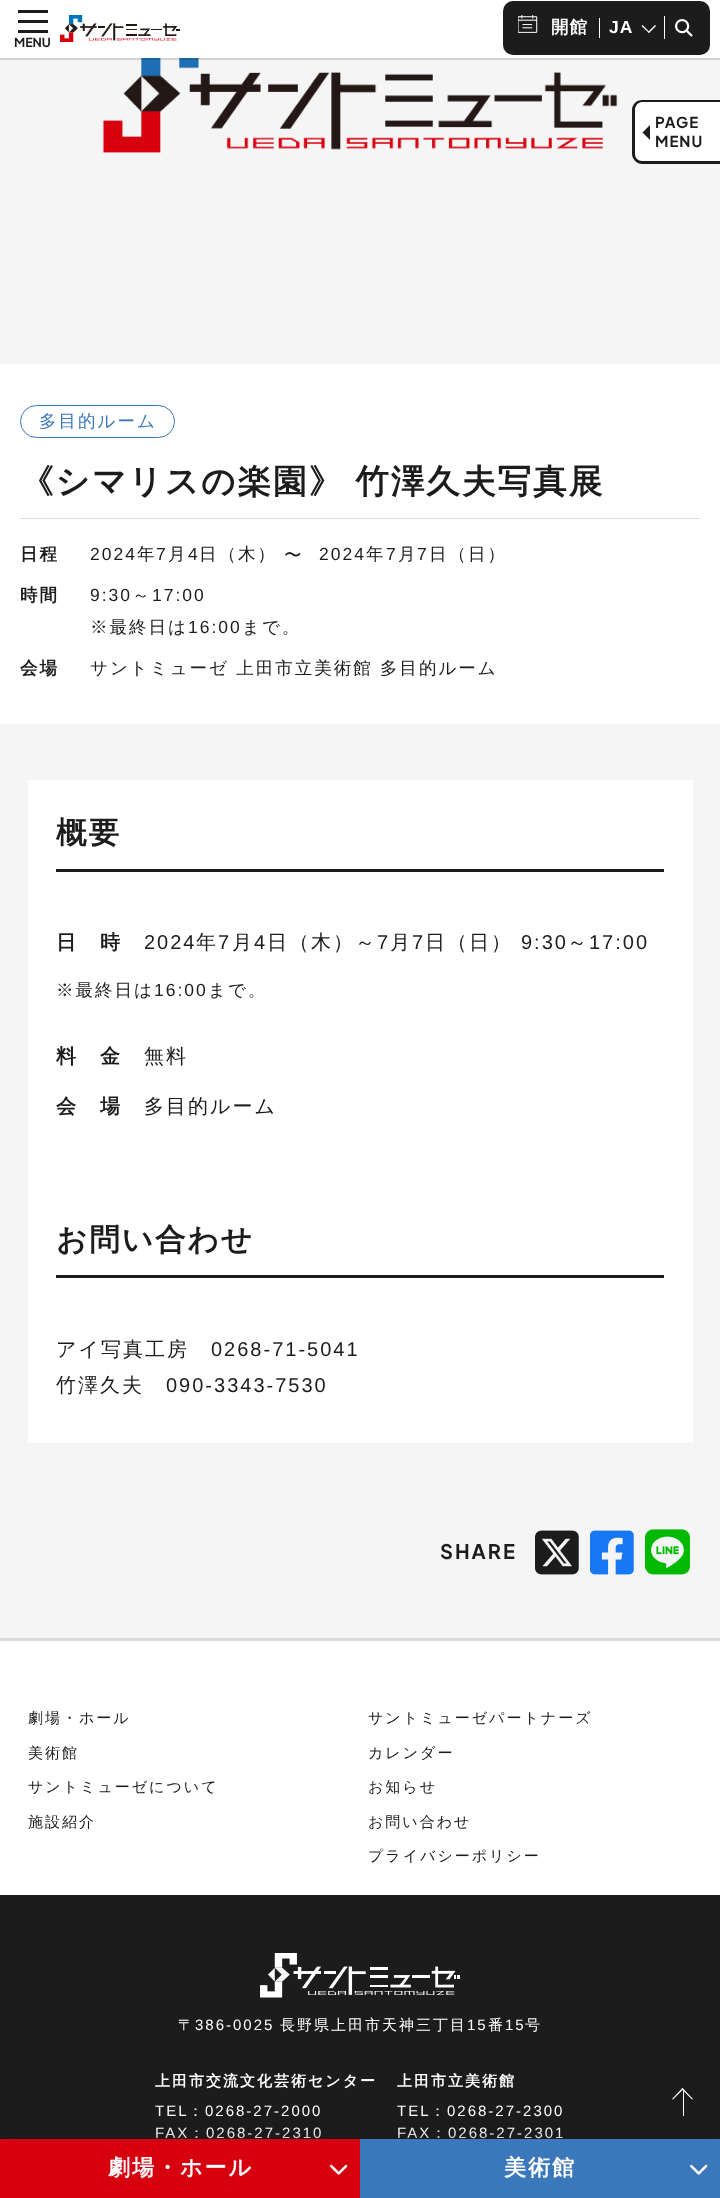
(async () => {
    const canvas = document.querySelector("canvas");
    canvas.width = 720;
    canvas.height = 2198;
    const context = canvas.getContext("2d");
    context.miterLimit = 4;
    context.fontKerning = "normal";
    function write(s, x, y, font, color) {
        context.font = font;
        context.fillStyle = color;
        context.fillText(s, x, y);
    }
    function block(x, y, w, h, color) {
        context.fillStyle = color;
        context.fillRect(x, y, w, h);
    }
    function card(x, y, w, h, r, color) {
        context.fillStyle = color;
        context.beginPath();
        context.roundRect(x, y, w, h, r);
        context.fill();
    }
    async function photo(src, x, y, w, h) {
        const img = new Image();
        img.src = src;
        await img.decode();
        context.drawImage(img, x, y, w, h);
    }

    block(0, 0, 720, 2198, "rgb(245, 245, 245)");
    await photo("media/7.png", 0, 58, 720, 306);
    context.strokeStyle = "rgba(28, 28, 28, 0.16)";
    context.lineWidth = 3;
    context.strokeRect(-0.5, -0.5, 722, 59);
    block(0, 0, 720, 58, "rgb(255, 255, 255)");
    await photo("media/1.png", 60, 15, 120, 27);
    card(503, 1, 207, 54, 10, "rgb(28, 28, 28)");
    await photo("media/2.png", 518, 15, 20, 18);
    context.letterSpacing = "1px";
    write("開館", 551, 33, "bold 17.5px WenQuanYi Zen Hei", "rgb(255, 255, 255)");
    block(599, 18, 1, 20, "rgb(255, 255, 255)");
    write("JA", 609, 33, "bold 17.5px Liberation Sans", "rgb(255, 255, 255)");
    context.beginPath();
    context.moveTo(656, 26);
    context.lineTo(649, 33);
    context.lineTo(648, 32);
    context.lineTo(655, 25);
    context.closePath();
    context.fill();
    context.beginPath();
    context.moveTo(649.5, 32);
    context.lineTo(649, 33);
    context.lineTo(641.5, 26);
    context.lineTo(642.5, 25);
    context.closePath();
    context.fill();
    block(664, 16, 1, 23, "rgb(255, 255, 255)");
    await photo("media/3.png", 675, 19, 18, 18);
    block(18, 10, 30, 3, "rgb(28, 28, 28)");
    block(18, 20, 30, 3, "rgb(28, 28, 28)");
    block(18, 30, 30, 3, "rgb(28, 28, 28)");
    context.letterSpacing = "0px";
    write("MENU", 14, 47, "bold 12.5px Plus Jakarta Sans", "rgb(28, 28, 28)");
    context.fillStyle = "rgb(255, 255, 255)";
    context.beginPath();
    context.roundRect(633, 100, 87, 64, [10, 0, 0, 10]);
    context.fill();
    context.fillStyle = "rgb(28, 28, 28)";
    context.beginPath();
    context.moveTo(642, 100);
    context.lineTo(720, 100);
    context.lineTo(720, 164);
    context.lineTo(642, 164);
    context.bezierCurveTo(637, 164, 632, 159, 632, 154);
    context.lineTo(632, 110);
    context.bezierCurveTo(632, 104, 637, 100, 642, 100);
    context.closePath();
    context.moveTo(642, 102);
    context.lineTo(720, 102);
    context.lineTo(720, 161);
    context.lineTo(642, 161);
    context.bezierCurveTo(638, 161, 635, 158, 635, 154);
    context.lineTo(635, 110);
    context.bezierCurveTo(635, 106, 638, 102, 642, 102);
    context.closePath();
    context.fill("evenodd");
    context.beginPath();
    context.moveTo(650, 125);
    context.lineTo(650, 140);
    context.lineTo(642.5, 132.5);
    context.closePath();
    context.fill();
    context.letterSpacing = "1px";
    write("PAGE", 655, 128, "bold 15px Plus Jakarta Sans", "rgb(28, 28, 28)");
    write("MENU", 655, 147, "bold 15px Plus Jakarta Sans", "rgb(28, 28, 28)");
    block(28, 780, 665, 663, "rgb(255, 255, 255)");
    block(56, 869, 608, 3, "rgb(28, 28, 28)");
    context.letterSpacing = "2px";
    write("概要", 56, 843, "bold 30.5px WenQuanYi Zen Hei", "rgb(28, 28, 28)");
    write("日　時", 56, 949, "bold 20px WenQuanYi Zen Hei", "rgb(28, 28, 28)");
    write("2024", 144, 949, "20px Liberation Sans", "rgb(28, 28, 28)");
    write("年", 196, 949, "500 20px WenQuanYi Zen Hei", "rgb(28, 28, 28)");
    write("7", 218, 949, "20px Liberation Sans", "rgb(28, 28, 28)");
    write("月", 232, 949, "500 20px WenQuanYi Zen Hei", "rgb(28, 28, 28)");
    write("4", 254, 949, "20px Liberation Sans", "rgb(28, 28, 28)");
    write("日（木）～", 267, 949, "500 20px WenQuanYi Zen Hei", "rgb(28, 28, 28)");
    write("7", 377, 949, "20px Liberation Sans", "rgb(28, 28, 28)");
    write("月", 390, 949, "500 20px WenQuanYi Zen Hei", "rgb(28, 28, 28)");
    write("7", 412, 949, "20px Liberation Sans", "rgb(28, 28, 28)");
    write("日（日）", 425, 949, "500 20px WenQuanYi Zen Hei", "rgb(28, 28, 28)");
    write("9:30", 521, 949, "20px Liberation Sans", "rgb(28, 28, 28)");
    write("～", 567, 949, "500 20px WenQuanYi Zen Hei", "rgb(28, 28, 28)");
    write("17:00", 589, 949, "20px Liberation Sans", "rgb(28, 28, 28)");
    write("※最終日は", 56, 996, "500 17.5px WenQuanYi Zen Hei", "rgb(28, 28, 28)");
    write("16:00", 154, 996, "17.5px Liberation Sans", "rgb(28, 28, 28)");
    write("まで。", 208, 996, "500 17.5px WenQuanYi Zen Hei", "rgb(28, 28, 28)");
    write("料　金", 56, 1063, "bold 20px WenQuanYi Zen Hei", "rgb(28, 28, 28)");
    write("無料", 144, 1063, "500 20px WenQuanYi Zen Hei", "rgb(28, 28, 28)");
    write("会　場", 56, 1113, "bold 20px WenQuanYi Zen Hei", "rgb(28, 28, 28)");
    write("多目的ルーム", 144, 1113, "500 20px WenQuanYi Zen Hei", "rgb(28, 28, 28)");
    block(56, 1275, 608, 3, "rgb(28, 28, 28)");
    write("お問い合わせ", 56, 1250, "bold 30.5px WenQuanYi Zen Hei", "rgb(28, 28, 28)");
    write("アイ写真工房", 56, 1356, "500 20px WenQuanYi Zen Hei", "rgb(28, 28, 28)");
    write("0268-71-5041", 211, 1356, "20px Liberation Sans", "rgb(28, 28, 28)");
    write("竹澤久夫", 56, 1392, "500 20px WenQuanYi Zen Hei", "rgb(28, 28, 28)");
    write("090-3343-7530", 166, 1392, "20px Liberation Sans", "rgb(28, 28, 28)");
    write("SHARE", 440, 1559, "bold 20px Plus Jakarta Sans", "rgb(28, 28, 28)");
    await photo("media/4.png", 535, 1530, 44, 45);
    await photo("media/5.png", 590, 1530, 44, 45);
    await photo("media/6.png", 645, 1529, 45, 46);
    block(0, 364, 720, 360, "rgb(255, 255, 255)");
    context.beginPath();
    context.roundRect(20.5, 405.5, 154, 32, 16);
    context.strokeStyle = "rgb(58, 119, 187)";
    context.lineWidth = 1;
    context.stroke();
    write("多目的ルーム", 39, 427, "500 17.5px WenQuanYi Zen Hei", "rgb(58, 119, 187)");
    context.wordSpacing = "-1px";
    write("《シマリスの楽園》 竹澤久夫写真展", 20, 493, "bold 33.6px WenQuanYi Zen Hei", "rgb(28, 28, 28)");
    block(20, 518, 680, 1, "rgb(219, 219, 219)");
    context.wordSpacing = "0px";
    write("日程", 20, 560, "bold 17.5px WenQuanYi Zen Hei", "rgb(28, 28, 28)");
    write("2024", 90, 560, "17.5px Liberation Sans", "rgb(28, 28, 28)");
    write("年", 137, 560, "500 17.5px WenQuanYi Zen Hei", "rgb(28, 28, 28)");
    write("7", 156, 560, "17.5px Liberation Sans", "rgb(28, 28, 28)");
    write("月", 168, 560, "500 17.5px WenQuanYi Zen Hei", "rgb(28, 28, 28)");
    write("4", 188, 560, "17.5px Liberation Sans", "rgb(28, 28, 28)");
    write("日（木）", 199, 560, "500 17.5px WenQuanYi Zen Hei", "rgb(28, 28, 28)");
    write("〜", 284, 561, "500 17.5px WenQuanYi Zen Hei", "rgb(28, 28, 28)");
    write("2024", 319, 560, "17.5px Liberation Sans", "rgb(28, 28, 28)");
    write("年", 366, 560, "500 17.5px WenQuanYi Zen Hei", "rgb(28, 28, 28)");
    write("7", 386, 560, "17.5px Liberation Sans", "rgb(28, 28, 28)");
    write("月", 398, 560, "500 17.5px WenQuanYi Zen Hei", "rgb(28, 28, 28)");
    write("7", 417, 560, "17.5px Liberation Sans", "rgb(28, 28, 28)");
    write("日（日）", 429, 560, "500 17.5px WenQuanYi Zen Hei", "rgb(28, 28, 28)");
    write("時間", 20, 601, "bold 17.5px WenQuanYi Zen Hei", "rgb(28, 28, 28)");
    write("9:30", 90, 601, "17.5px Liberation Sans", "rgb(28, 28, 28)");
    write("～", 132, 601, "500 17.5px WenQuanYi Zen Hei", "rgb(28, 28, 28)");
    write("17:00", 152, 601, "17.5px Liberation Sans", "rgb(28, 28, 28)");
    write("※最終日は", 90, 633, "500 17.5px WenQuanYi Zen Hei", "rgb(28, 28, 28)");
    write("16:00", 188, 633, "17.5px Liberation Sans", "rgb(28, 28, 28)");
    write("まで。", 242, 633, "500 17.5px WenQuanYi Zen Hei", "rgb(28, 28, 28)");
    write("会場", 20, 674, "bold 17.5px WenQuanYi Zen Hei", "rgb(28, 28, 28)");
    write("サントミューゼ 上田市立美術館 多目的ルーム", 90, 674, "500 17.5px WenQuanYi Zen Hei", "rgb(28, 28, 28)");
    block(0, 1895, 720, 244, "rgb(28, 28, 28)");
    block(0, 1641, 720, 254, "rgb(255, 255, 255)");
    block(0, 1638, 720, 3, "rgb(219, 219, 219)");
    write("劇場・ホール", 28, 1723, "500 15px WenQuanYi Zen Hei", "rgb(28, 28, 28)");
    write("サントミューゼパートナーズ", 368, 1723, "500 15px WenQuanYi Zen Hei", "rgb(28, 28, 28)");
    write("カレンダー", 368, 1758, "500 15px WenQuanYi Zen Hei", "rgb(28, 28, 28)");
    write("お知らせ", 368, 1792, "500 15px WenQuanYi Zen Hei", "rgb(28, 28, 28)");
    write("お問い合わせ", 368, 1827, "500 15px WenQuanYi Zen Hei", "rgb(28, 28, 28)");
    write("プライバシーポリシー", 368, 1861, "500 15px WenQuanYi Zen Hei", "rgb(28, 28, 28)");
    write("美術館", 28, 1758, "500 15px WenQuanYi Zen Hei", "rgb(28, 28, 28)");
    write("サントミューゼについて", 28, 1792, "500 15px WenQuanYi Zen Hei", "rgb(28, 28, 28)");
    write("施設紹介", 28, 1827, "500 15px WenQuanYi Zen Hei", "rgb(28, 28, 28)");
    await photo("media/8.png", 260, 1953, 200, 45);
    write("〒", 178, 2030, "500 15px WenQuanYi Zen Hei", "rgb(255, 255, 255)");
    write("386-0025", 195, 2030, "15px Liberation Sans", "rgb(255, 255, 255)");
    write("長野県上田市天神三丁目", 280, 2030, "500 15px WenQuanYi Zen Hei", "rgb(255, 255, 255)");
    write("15", 467, 2030, "15px Liberation Sans", "rgb(255, 255, 255)");
    write("番", 488, 2030, "500 15px WenQuanYi Zen Hei", "rgb(255, 255, 255)");
    write("15", 505, 2030, "15px Liberation Sans", "rgb(255, 255, 255)");
    write("号", 525, 2030, "500 15px WenQuanYi Zen Hei", "rgb(255, 255, 255)");
    write("上田市交流文化芸術センター", 155, 2086, "bold 15px WenQuanYi Zen Hei", "rgb(255, 255, 255)");
    write("TEL", 155, 2116, "15px Liberation Sans", "rgb(255, 255, 255)");
    write("：", 188, 2116, "500 15px WenQuanYi Zen Hei", "rgb(255, 255, 255)");
    write("0268-27-2000", 205, 2116, "15px Liberation Sans", "rgb(255, 255, 255)");
    write("FAX", 155, 2138, "15px Liberation Sans", "rgb(255, 255, 255)");
    write("：", 189, 2138, "500 15px WenQuanYi Zen Hei", "rgb(255, 255, 255)");
    write("0268-27-2310", 206, 2138, "15px Liberation Sans", "rgb(255, 255, 255)");
    write("上田市立美術館", 397, 2086, "bold 15px WenQuanYi Zen Hei", "rgb(255, 255, 255)");
    write("TEL", 397, 2116, "15px Liberation Sans", "rgb(255, 255, 255)");
    write("：", 430, 2116, "500 15px WenQuanYi Zen Hei", "rgb(255, 255, 255)");
    write("0268-27-2300", 447, 2116, "15px Liberation Sans", "rgb(255, 255, 255)");
    write("FAX", 397, 2138, "15px Liberation Sans", "rgb(255, 255, 255)");
    write("：", 431, 2138, "500 15px WenQuanYi Zen Hei", "rgb(255, 255, 255)");
    write("0268-27-2301", 448, 2138, "15px Liberation Sans", "rgb(255, 255, 255)");
    context.beginPath();
    context.moveTo(672, 2099);
    context.lineTo(682.5, 2088);
    context.lineTo(683.5, 2089);
    context.lineTo(673, 2099.5);
    context.closePath();
    context.fill();
    context.beginPath();
    context.moveTo(681.5, 2089);
    context.lineTo(682.5, 2088);
    context.lineTo(693, 2099);
    context.lineTo(692, 2099.5);
    context.closePath();
    context.fill();
    block(683, 2091, 1, 25, "rgb(255, 255, 255)");
    context.fillStyle = "rgba(28, 28, 28, 0.32)";
    context.filter = "blur(6px)";
    context.beginPath();
    context.rect(0, 2136, 720, 60);
    context.fill();
    context.filter = "none";
    block(0, 2139, 360, 59, "rgb(215, 0, 15)");
    write("劇場・ホール", 108, 2175, "bold 22px WenQuanYi Zen Hei", "rgb(255, 255, 255)");
    await photo("media/9.png", 330, 2164, 18, 11);
    block(360, 2139, 360, 59, "rgb(58, 119, 187)");
    write("美術館", 504, 2175, "bold 22px WenQuanYi Zen Hei", "rgb(255, 255, 255)");
    await photo("media/10.png", 690, 2164, 18, 11);
})();
